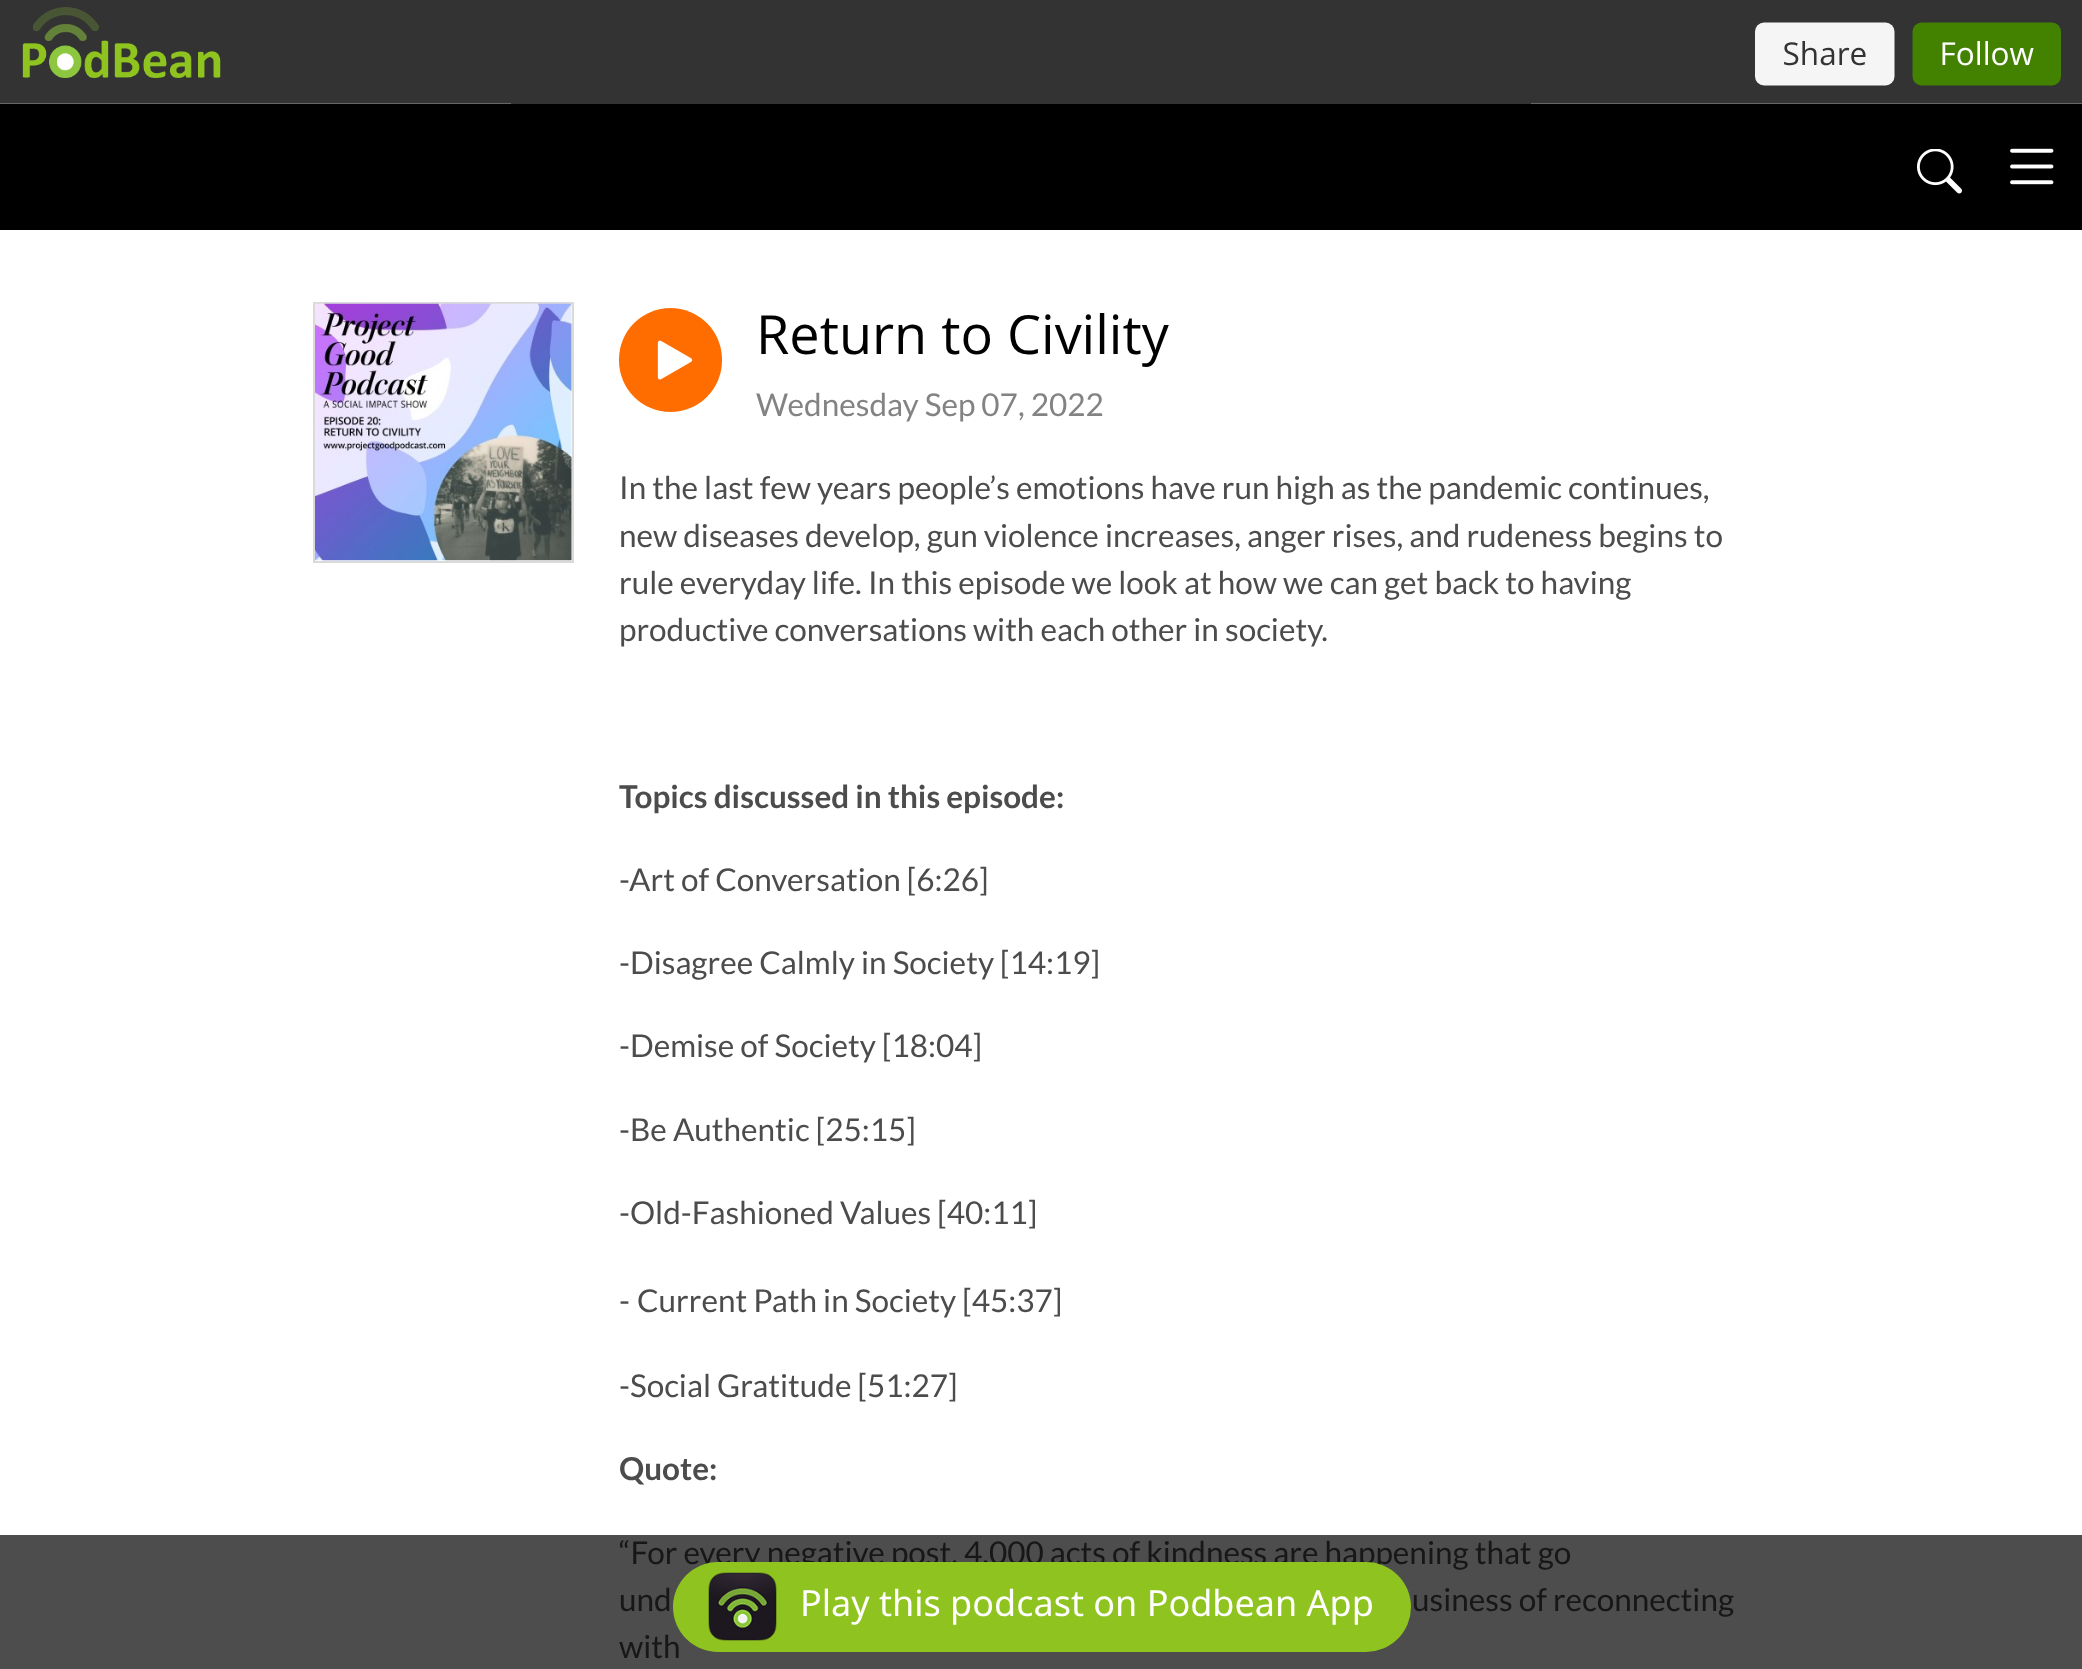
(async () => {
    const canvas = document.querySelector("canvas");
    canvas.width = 2082;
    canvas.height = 1669;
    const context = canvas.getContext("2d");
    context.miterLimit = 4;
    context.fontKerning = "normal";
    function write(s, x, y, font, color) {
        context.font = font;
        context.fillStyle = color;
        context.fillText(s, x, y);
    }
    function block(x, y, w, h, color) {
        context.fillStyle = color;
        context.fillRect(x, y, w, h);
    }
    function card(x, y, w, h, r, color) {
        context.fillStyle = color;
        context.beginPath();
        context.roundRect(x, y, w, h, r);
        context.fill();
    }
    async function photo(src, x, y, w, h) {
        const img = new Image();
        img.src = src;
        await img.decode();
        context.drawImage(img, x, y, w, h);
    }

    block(0, 0, 2082, 1669, "rgb(255, 255, 255)");
    block(0, 1535, 2082, 134, "rgb(77, 77, 77)");
    block(0, 0, 2082, 7, "rgb(51, 51, 51)");
    await photo("media/1.png", 0, 7, 2082, 97);
    block(0, 104, 2082, 126, "rgb(0, 0, 0)");
    await photo("media/2.png", 1917, 149, 45, 45);
    await photo("media/3.png", 2010, 148, 44, 37);
    context.strokeStyle = "rgb(218, 218, 218)";
    context.lineWidth = 2;
    context.strokeRect(314, 303, 259, 259);
    await photo("media/4.png", 315, 303, 257, 258);
    card(619, 308, 103, 104, 51.5, "rgb(255, 109, 0)");
    await photo("media/5.png", 657, 340, 36, 40);
    write("Return to Civility", 756, 354, "54px Open Sans", "rgb(0, 0, 0)");
    write("Wednesday Sep 07, 2022", 756, 416, "31.5px Lato", "rgb(131, 131, 131)");
    write("In the last few years people’s emotions have run high as the pandemic continues,", 619, 499, "31.5px Lato", "rgb(76, 76, 76)");
    write("new diseases develop, gun violence increases, anger rises, and rudeness begins to", 619, 547, "31.5px Lato", "rgb(76, 76, 76)");
    write("rule everyday life. In this episode we look at how we can get back to having", 619, 594, "31.5px Lato", "rgb(76, 76, 76)");
    write("productive conversations with each other in society.", 619, 641, "31.5px Lato", "rgb(76, 76, 76)");
    write("Topics discussed in this episode:", 619, 808, "bold 31.5px Lato", "rgb(76, 76, 76)");
    write("-Art of Conversation [6:26]", 619, 891, "31.5px Lato", "rgb(76, 76, 76)");
    write("-Disagree Calmly in Society [14:19]", 619, 974, "31.5px Lato", "rgb(76, 76, 76)");
    write("-Demise of Society [18:04]", 619, 1057, "31.5px Lato", "rgb(76, 76, 76)");
    write("-Be Authentic [25:15]", 619, 1141, "31.5px Lato", "rgb(76, 76, 76)");
    write("-Old-Fashioned Values [40:11]", 619, 1224, "31.5px Lato", "rgb(76, 76, 76)");
    write("-", 619, 1312, "31.5px Lato", "rgb(76, 76, 76)");
    write("Current Path in Society [45:37]", 637, 1312, "31.5px Lato", "rgb(76, 76, 76)");
    write("-Social Gratitude [51:27]", 619, 1397, "31.5px Lato", "rgb(76, 76, 76)");
    write("Quote:", 619, 1480, "bold 31.5px Lato", "rgb(76, 76, 76)");
    write("“For every negative post, 4,000 acts of kindness are happening that go", 619, 1564, "31.5px Lato", "rgb(23, 23, 23)");
    write("und", 619, 1611, "31.5px Lato", "rgb(23, 23, 23)");
    write("usiness of reconnecting", 1412, 1611, "31.5px Lato", "rgb(23, 23, 23)");
    write("with", 619, 1658, "31.5px Lato", "rgb(23, 23, 23)");
    card(673, 1562, 738, 90, 45, "rgb(143, 195, 31)");
    await photo("media/6.png", 708, 1572, 69, 69);
    write("Play this podcast on Podbean App", 800, 1616, "36px Noto Sans", "rgb(255, 255, 255)");
})();
